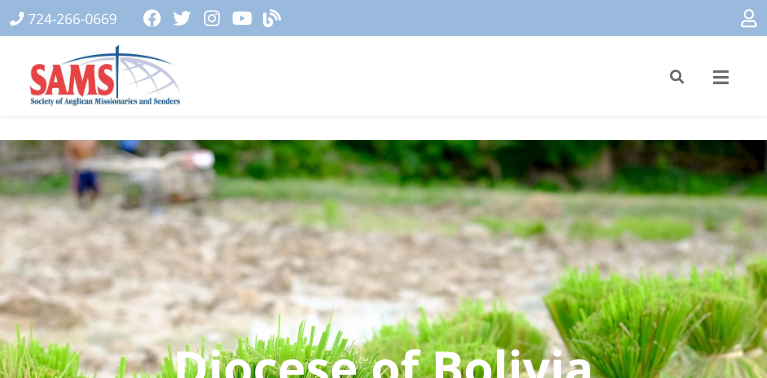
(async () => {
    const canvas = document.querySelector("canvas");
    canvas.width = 767;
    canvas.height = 378;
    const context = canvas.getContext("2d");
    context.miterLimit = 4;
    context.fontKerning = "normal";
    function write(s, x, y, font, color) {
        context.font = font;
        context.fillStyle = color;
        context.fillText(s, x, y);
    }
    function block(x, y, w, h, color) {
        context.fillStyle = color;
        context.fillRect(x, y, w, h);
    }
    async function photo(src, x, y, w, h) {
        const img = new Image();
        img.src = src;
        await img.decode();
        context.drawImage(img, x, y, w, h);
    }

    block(0, 0, 767, 378, "rgb(255, 255, 255)");
    context.save();
    context.beginPath();
    context.rect(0, 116, 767, 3);
    context.clip();
    context.fillStyle = "rgba(0, 0, 0, 0.1)";
    context.filter = "blur(3.5px)";
    context.beginPath();
    context.rect(0, 36, 767, 80);
    context.fill();
    context.filter = "none";
    context.restore();
    block(0, 0, 767, 36, "rgb(153, 186, 221)");
    await photo("media/1.png", 10, 11, 14, 15);
    write("724-266-0669", 28, 24, "14px Open Sans", "rgb(255, 255, 255)");
    await photo("media/2.png", 143, 9, 18, 18);
    await photo("media/3.png", 173, 11, 18, 15);
    await photo("media/4.png", 204, 10, 16, 17);
    await photo("media/5.png", 232, 11, 20, 14);
    await photo("media/6.png", 263, 9, 18, 19);
    await photo("media/7.png", 741, 9, 16, 19);
    await photo("media/8.png", 30, 45, 150, 62);
    await photo("media/9.png", 670, 69, 14, 15);
    await photo("media/10.png", 713, 70, 16, 15);
    await photo("media/11.png", 0, 140, 767, 238);
    write("Diocese of Bolivia", 173, 386, "bold 48px Open Sans", "rgb(255, 255, 255)");
})();
